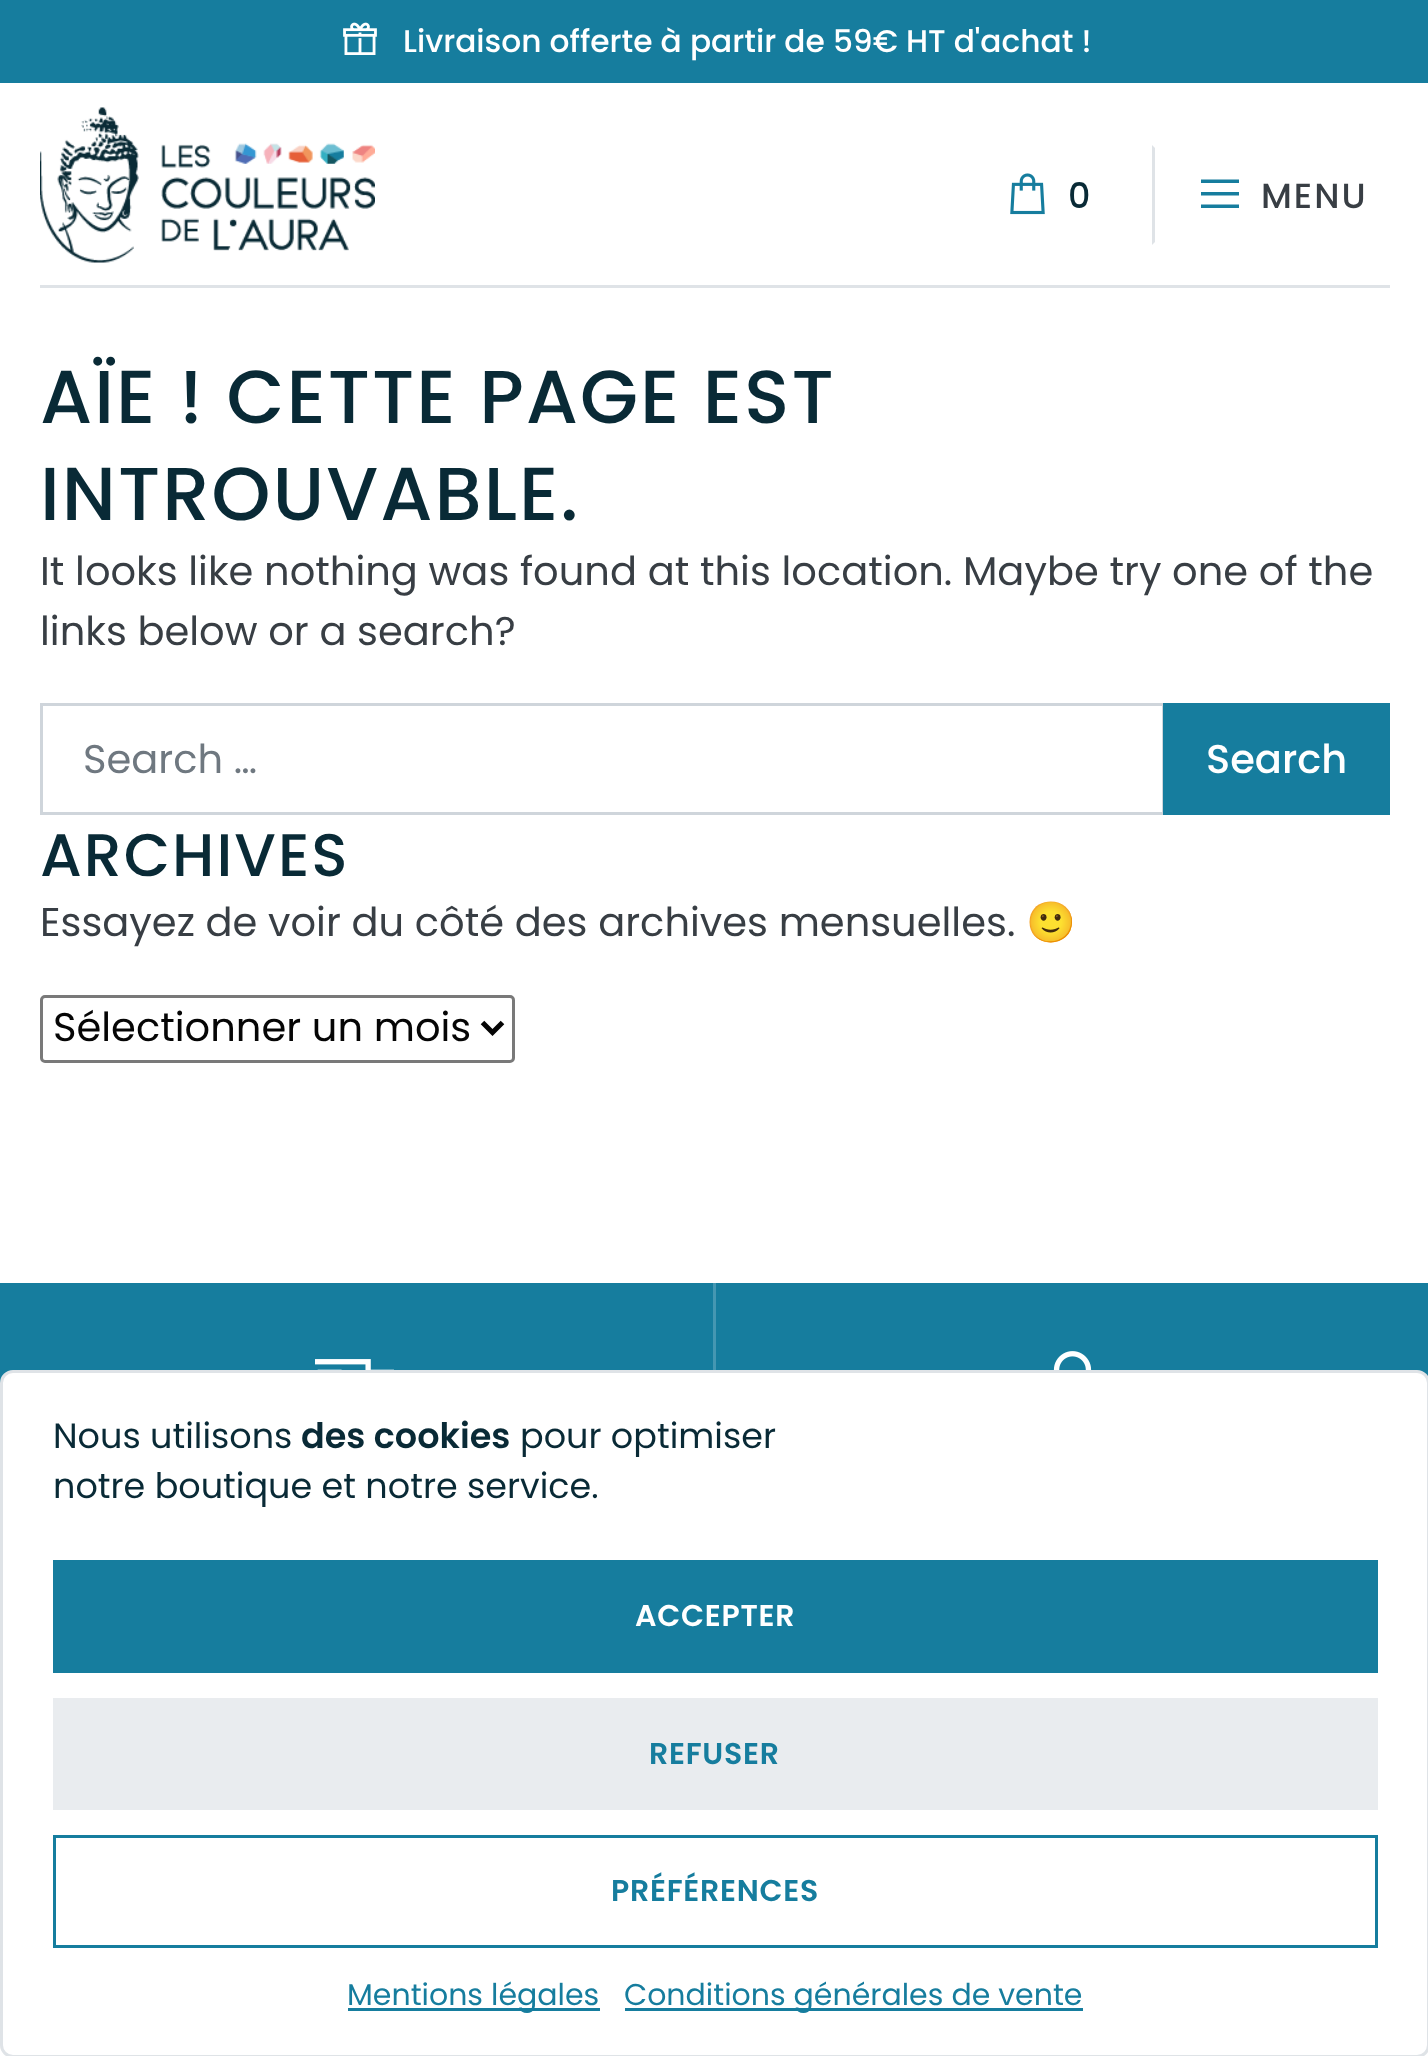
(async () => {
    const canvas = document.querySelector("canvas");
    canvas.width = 1428;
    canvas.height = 2056;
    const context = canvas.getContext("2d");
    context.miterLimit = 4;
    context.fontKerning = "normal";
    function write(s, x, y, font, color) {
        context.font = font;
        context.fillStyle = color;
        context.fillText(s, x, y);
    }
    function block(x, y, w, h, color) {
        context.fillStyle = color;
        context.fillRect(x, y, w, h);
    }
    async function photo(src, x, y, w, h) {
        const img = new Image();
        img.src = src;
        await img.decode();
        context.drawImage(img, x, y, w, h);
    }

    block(0, 0, 1428, 2056, "rgb(255, 255, 255)");
    block(0, 0, 1428, 83, "rgb(22, 125, 158)");
    await photo("media/1.png", 343, 22, 34, 33);
    write("Livraison offerte à partir de 59€ HT d'achat !", 403, 52, "500 31.25px Poppins", "rgb(255, 255, 255)");
    block(40, 285, 1350, 3, "rgb(223, 227, 231)");
    await photo("media/2.png", 40, 107, 335, 156);
    await photo("media/3.png", 1010, 173, 35, 42);
    context.letterSpacing = "2px";
    write("0", 1068, 208, "500 35px Poppins", "rgb(9, 42, 54)");
    context.fillStyle = "rgb(223, 227, 231)";
    context.beginPath();
    context.moveTo(1152, 245);
    context.lineTo(1152, 145);
    context.lineTo(1155, 148);
    context.lineTo(1155, 242);
    context.closePath();
    context.fill();
    context.fillStyle = "rgb(22, 125, 158)";
    context.beginPath();
    context.moveTo(1201, 179.5);
    context.lineTo(1201, 183);
    context.lineTo(1239, 183);
    context.lineTo(1239, 179.5);
    context.closePath();
    context.moveTo(1201, 192);
    context.lineTo(1201, 195.5);
    context.lineTo(1239, 195.5);
    context.lineTo(1239, 192);
    context.closePath();
    context.moveTo(1201, 204.5);
    context.lineTo(1201, 208);
    context.lineTo(1239, 208);
    context.lineTo(1239, 204.5);
    context.closePath();
    context.fill();
    write("MENU", 1261, 208, "500 35px Poppins", "rgb(56, 62, 68)");
    write("AÏE ! CETTE PAGE EST", 40, 423, "500 75px Poppins", "rgb(9, 42, 54)");
    write("INTROUVABLE.", 40, 520, "500 75px Poppins", "rgb(9, 42, 54)");
    context.letterSpacing = "0px";
    write("It looks like nothing was found at this location. Maybe try one of the", 40, 585, "40px Poppins", "rgb(56, 62, 68)");
    write("links below or a search?", 40, 645, "40px Poppins", "rgb(56, 62, 68)");
    context.strokeStyle = "rgb(207, 213, 219)";
    context.lineWidth = 3;
    context.strokeRect(41.5, 704.5, 1122, 109);
    write("Search …", 83, 773, "40px Poppins", "rgb(111, 120, 128)");
    block(1163, 703, 227, 112, "rgb(22, 125, 158)");
    write("Search", 1206, 773, "500 40px Poppins", "rgb(255, 255, 255)");
    context.letterSpacing = "2px";
    write("ARCHIVES", 40, 876, "500 60px Poppins", "rgb(9, 42, 54)");
    context.letterSpacing = "0px";
    write("Essayez de voir du côté des archives mensuelles.", 40, 936, "40px Poppins", "rgb(56, 62, 68)");
    write("🙂", 1026, 936, "40px Noto Color Emoji", "rgb(56, 62, 68)");
    context.beginPath();
    context.roundRect(41.5, 996.5, 472, 65, 3.5);
    context.strokeStyle = "rgb(121, 121, 121)";
    context.stroke();
    context.beginPath();
    context.moveTo(482.5, 1022.5);
    context.lineTo(492.5, 1032.5);
    context.lineTo(502.5, 1022.5);
    context.strokeStyle = "rgb(5, 5, 5)";
    context.lineWidth = 5;
    context.stroke();
    write("Sélectionner un mois", 53, 1041, "40px Poppins", "rgb(5, 5, 5)");
    block(0, 1283, 1428, 100, "rgb(22, 125, 158)");
    block(713, 1283, 3, 87, "rgb(69, 151, 178)");
    await photo("media/4.png", 315, 1359, 79, 11);
    await photo("media/5.png", 1053, 1351, 39, 19);
    context.fillStyle = "rgb(255, 255, 255)";
    context.beginPath();
    context.roundRect(1.5, 1371.5, 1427, 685, 11.5);
    context.fill();
    context.strokeStyle = "rgb(223, 227, 231)";
    context.lineWidth = 3;
    context.stroke();
    write("Nous utilisons", 53, 1448, "35px Poppins", "rgb(9, 42, 54)");
    write("des cookies", 301, 1448, "600 35px Poppins", "rgb(9, 42, 54)");
    write("pour optimiser", 520, 1448, "35px Poppins", "rgb(9, 42, 54)");
    write("notre boutique et notre service.", 53, 1498, "35px Poppins", "rgb(9, 42, 54)");
    block(53, 1560, 1325, 113, "rgb(22, 125, 158)");
    context.letterSpacing = "0.75px";
    write("ACCEPTER", 635, 1626, "600 30px Poppins", "rgb(255, 255, 255)");
    block(53, 1698, 1325, 112, "rgb(233, 236, 239)");
    write("REFUSER", 649, 1764, "600 30px Poppins", "rgb(22, 125, 158)");
    context.strokeStyle = "rgb(22, 125, 158)";
    context.strokeRect(54.5, 1836.5, 1322, 110);
    write("PRÉFÉRENCES", 611, 1901, "600 30px Poppins", "rgb(22, 125, 158)");
    block(348, 2008, 252, 3, "rgb(22, 125, 158)");
    context.letterSpacing = "0px";
    write("Mentions légales", 347, 2005, "30px Poppins", "rgb(22, 125, 158)");
    block(625, 2008, 458, 3, "rgb(22, 125, 158)");
    write("Conditions générales de vente", 624, 2005, "30px Poppins", "rgb(22, 125, 158)");
})();
